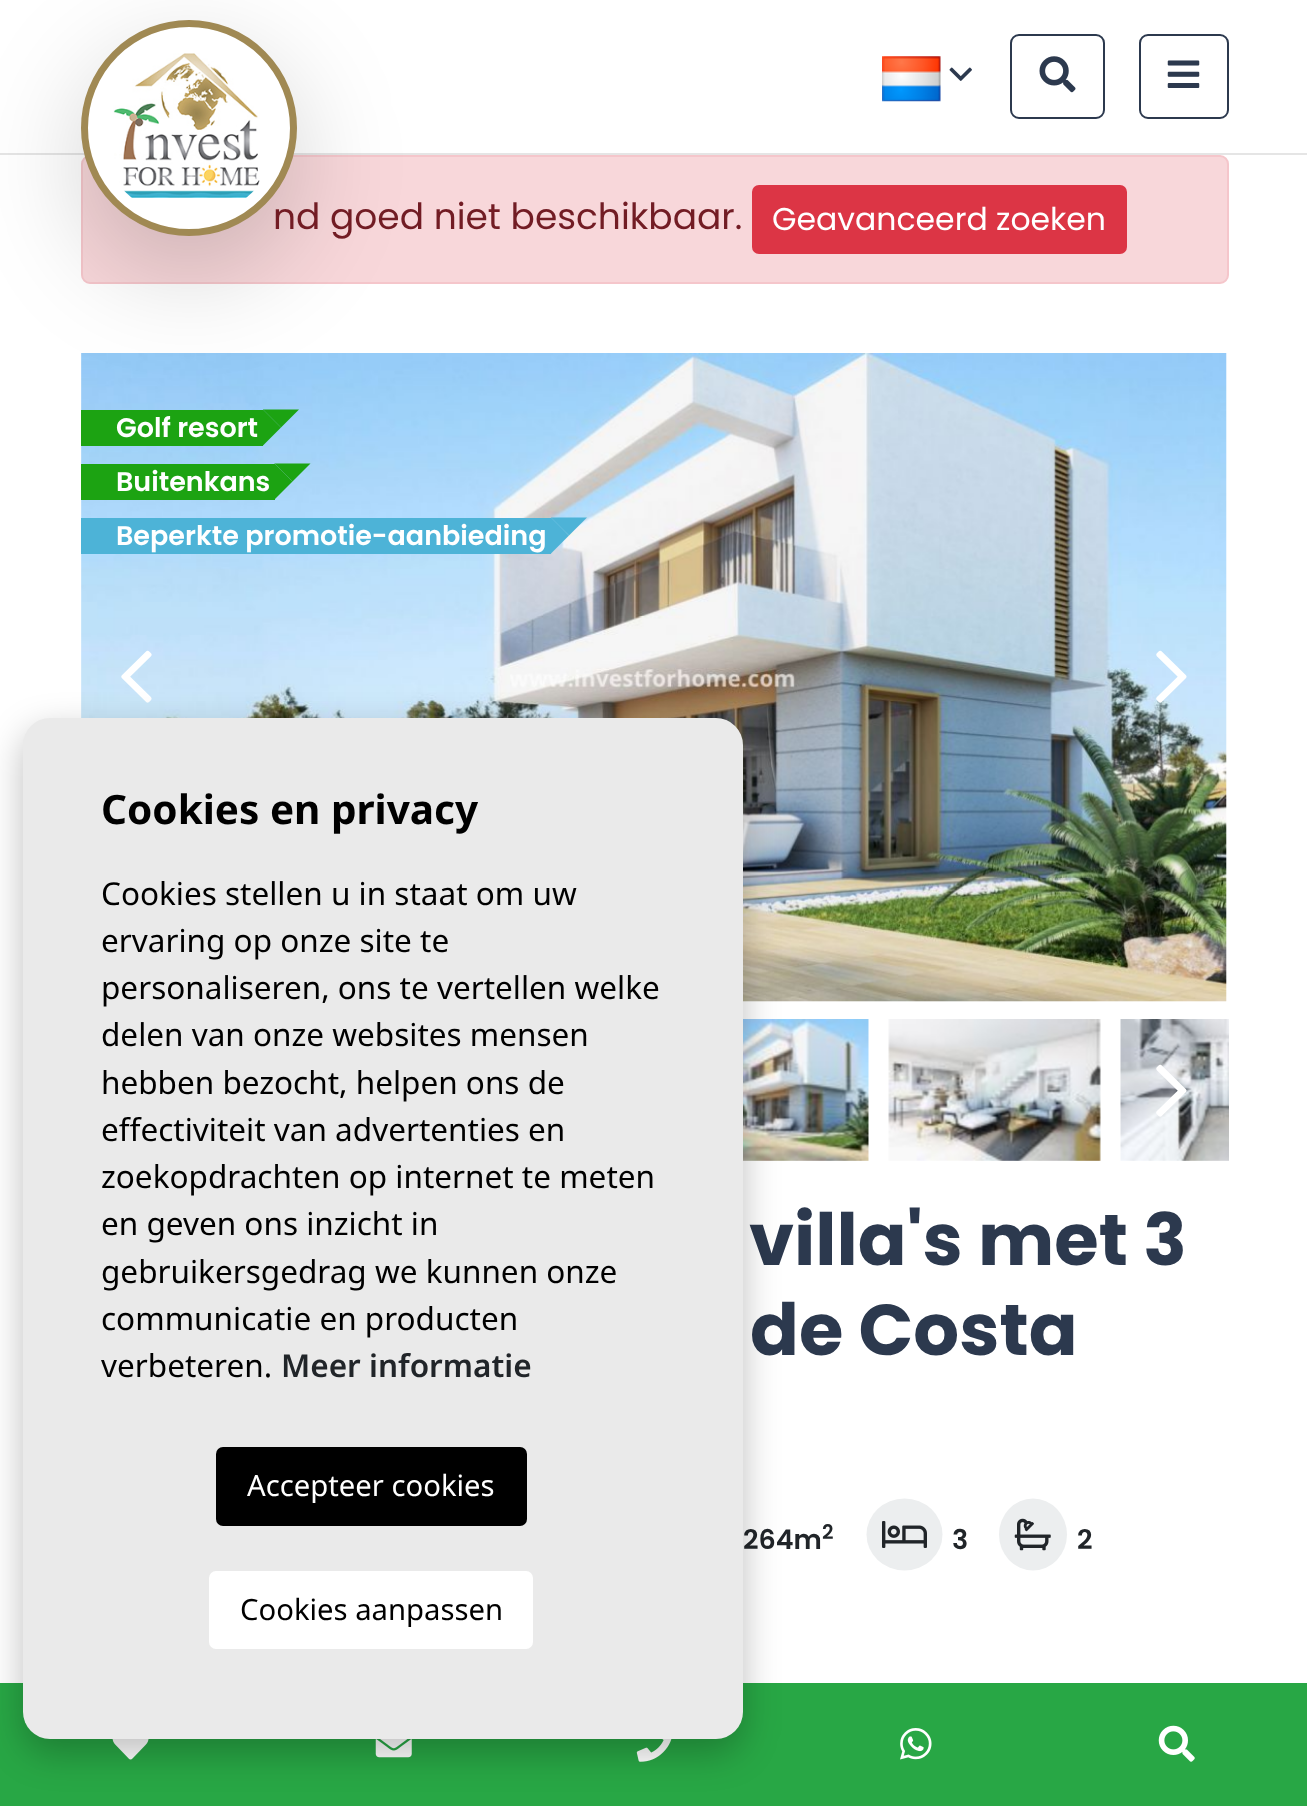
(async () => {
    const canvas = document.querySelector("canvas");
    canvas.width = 1307;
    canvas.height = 1806;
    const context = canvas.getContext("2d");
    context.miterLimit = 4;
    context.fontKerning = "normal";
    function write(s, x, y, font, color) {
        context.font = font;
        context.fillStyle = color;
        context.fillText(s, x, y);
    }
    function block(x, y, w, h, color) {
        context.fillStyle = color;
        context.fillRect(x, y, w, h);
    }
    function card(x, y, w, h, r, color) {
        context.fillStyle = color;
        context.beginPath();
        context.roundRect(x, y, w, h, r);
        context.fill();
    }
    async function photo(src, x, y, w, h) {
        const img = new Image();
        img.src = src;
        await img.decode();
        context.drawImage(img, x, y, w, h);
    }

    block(0, 0, 1307, 1806, "rgb(255, 255, 255)");
    block(0, 153, 1307, 2, "rgb(229, 229, 229)");
    context.fillStyle = "rgb(248, 215, 218)";
    context.beginPath();
    context.roundRect(82, 156, 1146, 127, 8);
    context.fill();
    context.strokeStyle = "rgb(245, 198, 203)";
    context.lineWidth = 2;
    context.stroke();
    await photo("media/6.png", 81, 353, 1146, 649);
    block(81, 410, 182, 36, "rgb(28, 163, 18)");
    context.beginPath();
    context.moveTo(263, 409.5);
    context.lineTo(299, 409.5);
    context.lineTo(281, 427.5);
    context.closePath();
    context.fill();
    context.beginPath();
    context.moveTo(263, 445.5);
    context.lineTo(263, 409.5);
    context.lineTo(281, 427.5);
    context.closePath();
    context.fill();
    context.fillStyle = "rgba(0, 0, 0, 0.18)";
    context.filter = "blur(54px)";
    context.beginPath();
    context.roundRect(81, 56, 216, 216, 108);
    context.fill();
    context.filter = "none";
    write("nd goed niet beschikbaar.", 273, 229, "36px Poppins", "rgb(114, 28, 36)");
    context.fillStyle = "rgb(255, 255, 255)";
    context.beginPath();
    context.arc(189, 128, 104.5, 0, Math.PI * 2);
    context.fill();
    context.strokeStyle = "rgb(160, 137, 83)";
    context.lineWidth = 7;
    context.stroke();
    await photo("media/1.png", 113, 53, 147, 145);
    await photo("media/2.png", 882, 56, 59, 46);
    await photo("media/3.png", 949, 67, 23, 14);
    context.beginPath();
    context.roundRect(1011, 35, 93, 83, 8);
    context.strokeStyle = "rgb(44, 57, 78)";
    context.lineWidth = 2;
    context.stroke();
    await photo("media/4.png", 1039, 56, 37, 37);
    context.beginPath();
    context.roundRect(1140, 35, 88, 83, 8);
    context.stroke();
    await photo("media/5.png", 1167, 60, 33, 28);
    context.fillStyle = "rgb(220, 53, 69)";
    context.beginPath();
    context.roundRect(753, 186, 373, 67, 6);
    context.fill();
    context.strokeStyle = "rgb(220, 53, 69)";
    context.stroke();
    write("Geavanceerd zoeken", 772, 230, "31.5px Poppins", "rgb(255, 255, 255)");
    await photo("media/7.png", 121, 650, 31, 53);
    await photo("media/8.png", 1156, 650, 31, 53);
    write("Golf resort", 116, 437, "600 27px Poppins", "rgb(255, 255, 255)");
    block(81, 464, 194, 36, "rgb(28, 163, 18)");
    write("Buitenkans", 116, 491, "600 27px Poppins", "rgb(255, 255, 255)");
    context.fillStyle = "rgb(28, 163, 18)";
    context.beginPath();
    context.moveTo(274.5, 463.5);
    context.lineTo(310.5, 463.5);
    context.lineTo(292.5, 481.5);
    context.closePath();
    context.fill();
    context.beginPath();
    context.moveTo(274.5, 499.5);
    context.lineTo(274.5, 463.5);
    context.lineTo(292.5, 481.5);
    context.closePath();
    context.fill();
    block(81, 518, 470, 36, "rgb(77, 179, 215)");
    write("Beperkte promotie-aanbieding", 116, 545, "600 27px Poppins", "rgb(255, 255, 255)");
    context.fillStyle = "rgb(77, 179, 215)";
    context.beginPath();
    context.moveTo(551, 517.5);
    context.lineTo(587, 517.5);
    context.lineTo(569, 535.5);
    context.closePath();
    context.fill();
    context.beginPath();
    context.moveTo(551, 553.5);
    context.lineTo(551, 517.5);
    context.lineTo(569, 535.5);
    context.closePath();
    context.fill();
    await photo("media/9.png", 743, 1019, 126, 142);
    await photo("media/10.png", 888, 1019, 213, 142);
    await photo("media/11.png", 1120, 1019, 109, 142);
    await photo("media/12.png", 1156, 1064, 31, 53);
    write("villa's met 3", 749, 1265, "bold 72px Poppins", "rgb(44, 57, 78)");
    write("de Costa", 750, 1355, "bold 72px Poppins", "rgb(44, 57, 78)");
    write("264m", 743, 1549, "600 27px Poppins", "rgb(33, 37, 41)");
    write("2", 822, 1539, "600 20px Poppins", "rgb(33, 37, 41)");
    context.fillStyle = "rgb(236, 238, 239)";
    context.beginPath();
    context.ellipse(904.5, 1534.5, 38, 36, 0, 0, Math.PI * 2);
    context.fill();
    await photo("media/13.png", 882, 1521, 45, 27);
    write("3", 952, 1549, "600 27px Poppins", "rgb(33, 37, 41)");
    context.fillStyle = "rgb(236, 238, 239)";
    context.beginPath();
    context.ellipse(1033, 1534.5, 34, 36, 0, 0, Math.PI * 2);
    context.fill();
    await photo("media/14.png", 1014, 1518, 37, 33);
    write("2", 1077, 1549, "600 27px Poppins", "rgb(33, 37, 41)");
    block(0, 1683, 1307, 123, "rgb(40, 167, 69)");
    await photo("media/15.png", 112, 1739, 37, 21);
    await photo("media/16.png", 375, 1739, 37, 19);
    await photo("media/17.png", 636, 1739, 36, 23);
    context.fillStyle = "rgba(0, 0, 0, 0.25)";
    context.filter = "blur(18px)";
    context.beginPath();
    context.roundRect(23, 731, 720, 1022, 27);
    context.fill();
    context.filter = "none";
    card(23, 718, 720, 1021, 27, "rgb(234, 234, 234)");
    write("Cookies en privacy", 101, 824, "bold 40.5px Noto Sans", "rgb(0, 0, 0)");
    write("Cookies stellen u in staat om uw", 101, 905, "31.5px Noto Sans", "rgb(0, 0, 0)");
    write("ervaring op onze site te", 101, 952, "31.5px Noto Sans", "rgb(0, 0, 0)");
    write("personaliseren, ons te vertellen welke", 101, 999, "31.5px Noto Sans", "rgb(0, 0, 0)");
    write("delen van onze websites mensen", 101, 1046, "31.5px Noto Sans", "rgb(0, 0, 0)");
    write("hebben bezocht, helpen ons de", 101, 1094, "31.5px Noto Sans", "rgb(0, 0, 0)");
    write("effectiviteit van advertenties en", 101, 1141, "31.5px Noto Sans", "rgb(0, 0, 0)");
    write("zoekopdrachten op internet te meten", 101, 1188, "31.5px Noto Sans", "rgb(0, 0, 0)");
    write("en geven ons inzicht in", 101, 1235, "31.5px Noto Sans", "rgb(0, 0, 0)");
    write("gebruikersgedrag we kunnen onze", 101, 1283, "31.5px Noto Sans", "rgb(0, 0, 0)");
    write("communicatie en producten", 101, 1330, "31.5px Noto Sans", "rgb(0, 0, 0)");
    write("verbeteren.", 101, 1377, "31.5px Noto Sans", "rgb(0, 0, 0)");
    write("Meer informatie", 281, 1377, "600 31.5px Noto Sans", "rgb(33, 37, 41)");
    card(216, 1447, 311, 79, 7, "rgb(0, 0, 0)");
    write("Accepteer cookies", 247, 1496, "29.25px Noto Sans", "rgb(255, 255, 255)");
    card(209, 1571, 324, 78, 7, "rgb(255, 255, 255)");
    write("Cookies aanpassen", 240, 1620, "29.25px Noto Sans", "rgb(0, 0, 0)");
    await photo("media/18.png", 900, 1728, 32, 32);
    await photo("media/19.png", 1158, 1725, 37, 37);
})();
